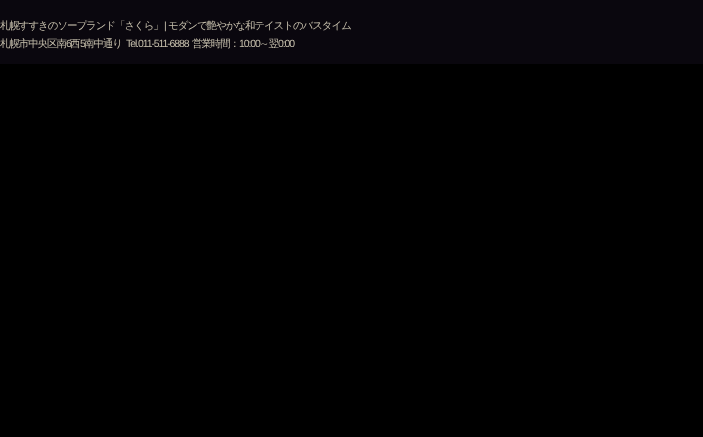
(async () => {
    const canvas = document.querySelector("canvas");
    canvas.width = 703;
    canvas.height = 437;
    const context = canvas.getContext("2d");
    context.miterLimit = 4;
    context.fontKerning = "normal";
    function write(s, x, y, font, color) {
        context.font = font;
        context.fillStyle = color;
        context.fillText(s, x, y);
    }
    function block(x, y, w, h, color) {
        context.fillStyle = color;
        context.fillRect(x, y, w, h);
    }

    block(0, 0, 703, 437, "rgb(0, 0, 0)");
    block(0, 0, 703, 64, "rgb(10, 7, 14)");
    context.letterSpacing = "-1.1px";
    write("札幌すすきのソープランド「さくら」", 0, 29, "500 10.5px WenQuanYi Zen Hei", "rgb(198, 191, 172)");
    write("|", 164, 29, "10.5px Liberation Sans", "rgb(198, 191, 172)");
    write("モダンで艶やかな和テイストのバスタイム", 168, 29, "500 10.5px WenQuanYi Zen Hei", "rgb(198, 191, 172)");
    write("札幌市中央区南", 0, 47, "500 10.5px WenQuanYi Zen Hei", "rgb(198, 191, 172)");
    write("6", 66, 47, "10.5px Liberation Sans", "rgb(198, 191, 172)");
    write("西", 70, 47, "500 10.5px WenQuanYi Zen Hei", "rgb(198, 191, 172)");
    write("5", 80, 47, "10.5px Liberation Sans", "rgb(198, 191, 172)");
    write("南中通り", 84, 47, "500 10.5px WenQuanYi Zen Hei", "rgb(198, 191, 172)");
    write("Tel.011-511-6888", 126, 47, "10.5px Liberation Sans", "rgb(198, 191, 172)");
    write("営業時間：", 192, 47, "500 10.5px WenQuanYi Zen Hei", "rgb(198, 191, 172)");
    write("10:00", 239, 47, "10.5px Liberation Sans", "rgb(198, 191, 172)");
    write("～翌", 259, 47, "500 10.5px WenQuanYi Zen Hei", "rgb(198, 191, 172)");
    write("0:00", 278, 47, "10.5px Liberation Sans", "rgb(198, 191, 172)");
})();
